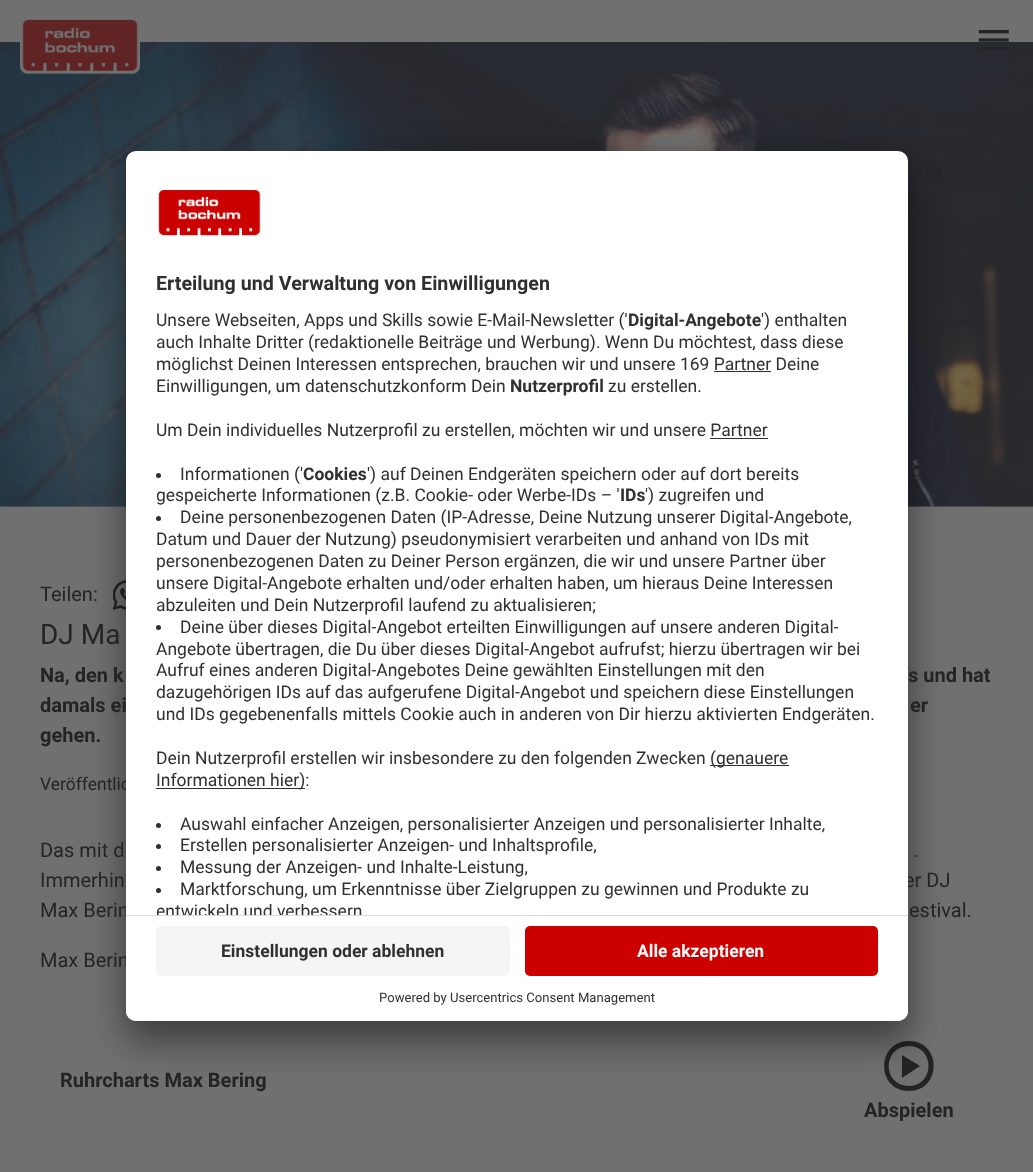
(async () => {
    const canvas = document.querySelector("canvas");
    canvas.width = 1033;
    canvas.height = 1172;
    const context = canvas.getContext("2d");
    context.miterLimit = 4;
    context.fontKerning = "normal";
    function write(s, x, y, font, color) {
        context.font = font;
        context.fillStyle = color;
        context.fillText(s, x, y);
    }
    function block(x, y, w, h, color) {
        context.fillStyle = color;
        context.fillRect(x, y, w, h);
    }
    function card(x, y, w, h, r, color) {
        context.fillStyle = color;
        context.beginPath();
        context.roundRect(x, y, w, h, r);
        context.fill();
    }
    async function photo(src, x, y, w, h) {
        const img = new Image();
        img.src = src;
        await img.decode();
        context.drawImage(img, x, y, w, h);
    }

    block(0, 0, 1033, 1172, "rgb(112, 112, 112)");
    await photo("media/4.png", 0, 42, 1033, 465);
    await photo("media/5.png", 113, 580, 13, 30);
    context.fillStyle = "rgb(36, 36, 36)";
    context.beginPath();
    context.moveTo(902, 1078);
    context.lineTo(920, 1066);
    context.lineTo(902, 1055);
    context.closePath();
    context.moveTo(909, 1091);
    context.bezierCurveTo(876, 1091, 876, 1041, 909, 1041);
    context.bezierCurveTo(942, 1041, 942, 1091, 909, 1091);
    context.closePath();
    context.moveTo(909, 1086);
    context.bezierCurveTo(935, 1086, 935, 1046, 909, 1046);
    context.bezierCurveTo(882, 1046, 882, 1086, 909, 1086);
    context.closePath();
    context.moveTo(909, 1066);
    context.closePath();
    context.fill();
    context.fillStyle = "rgba(0, 0, 0, 0.3)";
    context.filter = "blur(17.5px)";
    context.beginPath();
    context.roundRect(126, 176, 782, 870, 10);
    context.fill();
    context.filter = "none";
    context.fillStyle = "rgba(0, 0, 0, 0.22)";
    context.filter = "blur(16px)";
    context.beginPath();
    context.roundRect(126, 158, 782, 870, 10);
    context.fill();
    context.filter = "none";
    write("Veröffentlic", 40, 790, "17.5px Roboto", "rgb(36, 36, 36)");
    write("er DJ", 904, 887, "20px Roboto", "rgb(36, 36, 36)");
    write("Max Berin", 40, 917, "20px Roboto", "rgb(36, 36, 36)");
    write("Max Berin", 40, 967, "20px Roboto", "rgb(36, 36, 36)");
    card(126, 151, 782, 870, 10, "rgb(255, 255, 255)");
    context.save();
    context.beginPath();
    context.roundRect(126, 151, 782, 870, 10);
    context.clip();
    context.beginPath();
    context.roundRect(126, 151, 782, 764, [10, 10, 0, 0]);
    context.clip();
    block(126, 153, 782, 762, "rgb(255, 255, 255)");
    context.restore();
    await photo("media/1.png", 158, 189, 103, 47);
    write("Erteilung und Verwaltung von Einwilligungen", 156, 290, "bold 19.7px Roboto", "rgb(48, 48, 48)");
    write("Unsere Webseiten, Apps und Skills sowie E-Mail-Newsletter ('", 156, 326, "17.5px Roboto", "rgb(48, 48, 48)");
    write("Digital-Angebote", 628, 326, "bold 17.5px Roboto", "rgb(48, 48, 48)");
    write("') enthalten", 761, 326, "17.5px Roboto", "rgb(48, 48, 48)");
    write("auch Inhalte Dritter (redaktionelle Beiträge und Werbung). Wenn Du möchtest, dass diese", 156, 348, "17.5px Roboto", "rgb(48, 48, 48)");
    write("möglichst Deinen Interessen entsprechen, brauchen wir und unsere 169 Partner Deine", 156, 370, "17.5px Roboto", "rgb(48, 48, 48)");
    block(714, 371, 57, 1, "rgb(48, 48, 48)");
    write("Einwilligungen, um datenschutzkonform Dein", 156, 392, "17.5px Roboto", "rgb(48, 48, 48)");
    write("Nutzerprofil", 510, 392, "bold 17.5px Roboto", "rgb(48, 48, 48)");
    write("zu erstellen.", 608, 392, "17.5px Roboto", "rgb(48, 48, 48)");
    write("Um Dein individuelles Nutzerprofil zu erstellen, möchten wir und unsere Partner", 156, 436, "17.5px Roboto", "rgb(48, 48, 48)");
    block(710, 438, 58, 1, "rgb(48, 48, 48)");
    context.beginPath();
    context.arc(158.5, 475.5, 2.5, 0, Math.PI * 2);
    context.fill();
    write("Informationen ('", 180, 480, "17.5px Roboto", "rgb(48, 48, 48)");
    write("Cookies", 303, 480, "bold 17.5px Roboto", "rgb(48, 48, 48)");
    write("') auf Deinen Endgeräten speichern oder auf dort bereits", 367, 480, "17.5px Roboto", "rgb(48, 48, 48)");
    write("gespeicherte Informationen (z.B. Cookie- oder Werbe-IDs – '", 156, 501, "17.5px Roboto", "rgb(48, 48, 48)");
    write("IDs", 620, 501, "bold 17.5px Roboto", "rgb(48, 48, 48)");
    write("') zugreifen und", 645, 501, "17.5px Roboto", "rgb(48, 48, 48)");
    context.beginPath();
    context.arc(158.5, 518.5, 2.5, 0, Math.PI * 2);
    context.fill();
    write("Deine personenbezogenen Daten (IP-Adresse, Deine Nutzung unserer Digital-Angebote,", 180, 523, "17.5px Roboto", "rgb(48, 48, 48)");
    write("Datum und Dauer der Nutzung) pseudonymisiert verarbeiten und anhand von IDs mit", 156, 545, "17.5px Roboto", "rgb(48, 48, 48)");
    write("personenbezogenen Daten zu Deiner Person ergänzen, die wir und unsere Partner über", 156, 567, "17.5px Roboto", "rgb(48, 48, 48)");
    write("unsere Digital-Angebote erhalten und/oder erhalten haben, um hieraus Deine Interessen", 156, 589, "17.5px Roboto", "rgb(48, 48, 48)");
    write("abzuleiten und Dein Nutzerprofil laufend zu aktualisieren;", 156, 611, "17.5px Roboto", "rgb(48, 48, 48)");
    context.beginPath();
    context.arc(158.5, 627.5, 2.5, 0, Math.PI * 2);
    context.fill();
    write("Deine über dieses Digital-Angebot erteilten Einwilligungen auf unsere anderen Digital-", 180, 633, "17.5px Roboto", "rgb(48, 48, 48)");
    write("Angebote übertragen, die Du über dieses Digital-Angebot aufrufst; hierzu übertragen wir bei", 156, 655, "17.5px Roboto", "rgb(48, 48, 48)");
    write("Aufruf eines anderen Digital-Angebotes Deine gewählten Einstellungen mit den", 156, 676, "17.5px Roboto", "rgb(48, 48, 48)");
    write("dazugehörigen IDs auf das aufgerufene Digital-Angebot und speichern diese Einstellungen", 156, 698, "17.5px Roboto", "rgb(48, 48, 48)");
    write("und IDs gegebenenfalls mittels Cookie auch in anderen von Dir hierzu aktivierten Endgeräten.", 156, 720, "17.5px Roboto", "rgb(48, 48, 48)");
    write("Dein Nutzerprofil erstellen wir insbesondere zu den folgenden Zwecken", 156, 764, "17.5px Roboto", "rgb(48, 48, 48)");
    block(710, 765, 79, 1, "rgb(48, 48, 48)");
    write("(genauere", 710, 764, "17.5px Roboto", "rgb(48, 48, 48)");
    block(156, 788, 149, 1, "rgb(48, 48, 48)");
    write("Informationen hier):", 156, 786, "17.5px Roboto", "rgb(48, 48, 48)");
    context.beginPath();
    context.arc(158.5, 825.5, 2.5, 0, Math.PI * 2);
    context.fill();
    write("Auswahl einfacher Anzeigen, personalisierter Anzeigen und personalisierter Inhalte,", 180, 830, "17.5px Roboto", "rgb(48, 48, 48)");
    context.beginPath();
    context.arc(158.5, 846.5, 2.5, 0, Math.PI * 2);
    context.fill();
    write("Erstellen personalisierter Anzeigen- und Inhaltsprofile,", 180, 851, "17.5px Roboto", "rgb(48, 48, 48)");
    context.beginPath();
    context.arc(158.5, 868.5, 2.5, 0, Math.PI * 2);
    context.fill();
    write("Messung der Anzeigen- und Inhalte-Leistung,", 180, 873, "17.5px Roboto", "rgb(48, 48, 48)");
    context.beginPath();
    context.arc(158.5, 890.5, 2.5, 0, Math.PI * 2);
    context.fill();
    write("Marktforschung, um Erkenntnisse über Zielgruppen zu gewinnen und Produkte zu", 180, 895, "17.5px Roboto", "rgb(48, 48, 48)");
    context.save();
    context.beginPath();
    context.roundRect(126, 151, 782, 764, [10, 10, 0, 0]);
    context.clip();
    write("entwickeln und verbessern", 156, 917, "17.5px Roboto", "rgb(48, 48, 48)");
    context.restore();
    context.fillStyle = "rgb(255, 255, 255)";
    context.beginPath();
    context.roundRect(126, 915, 782, 106, [0, 0, 10, 10]);
    context.fill();
    block(126, 915, 782, 1, "rgb(221, 221, 221)");
    card(156, 926, 354, 50, 5, "rgb(245, 245, 245)");
    write("Einstellungen oder ablehnen", 221, 957, "bold 17.5px Roboto", "rgb(48, 48, 48)");
    card(525, 926, 353, 50, 5, "rgb(204, 0, 0)");
    write("Alle akzeptieren", 637, 957, "bold 17.5px Roboto", "rgb(250, 250, 250)");
    write("Powered by Usercentrics Consent Management", 379, 1002, "13.1px Roboto", "rgb(48, 48, 48)");
    await photo("media/2.png", 20, 19, 120, 55);
    await photo("media/3.png", 978, 30, 31, 20);
    write("Teilen:", 40, 601, "20px Roboto", "rgb(36, 36, 36)");
    write("DJ Ma", 40, 644, "28px Roboto", "rgb(36, 36, 36)");
    write("Na, den k", 40, 682, "bold 20px Roboto", "rgb(36, 36, 36)");
    write("s und hat", 908, 682, "bold 20px Roboto", "rgb(36, 36, 36)");
    write("damals ei", 40, 712, "bold 20px Roboto", "rgb(36, 36, 36)");
    write("er", 910, 712, "bold 20px Roboto", "rgb(36, 36, 36)");
    write("gehen.", 40, 742, "bold 20px Roboto", "rgb(36, 36, 36)");
    write("Das mit d", 40, 857, "20px Roboto", "rgb(36, 36, 36)");
    write(".", 913, 857, "20px Roboto", "rgb(36, 36, 36)");
    write("Immerhin", 40, 887, "20px Roboto", "rgb(36, 36, 36)");
    write("estival.", 909, 917, "20px Roboto", "rgb(36, 36, 36)");
    write("Ruhrcharts Max Bering", 60, 1087, "bold 20px Roboto", "rgb(36, 36, 36)");
    write("Abspielen", 864, 1117, "bold 20px Roboto", "rgb(36, 36, 36)");
})();
